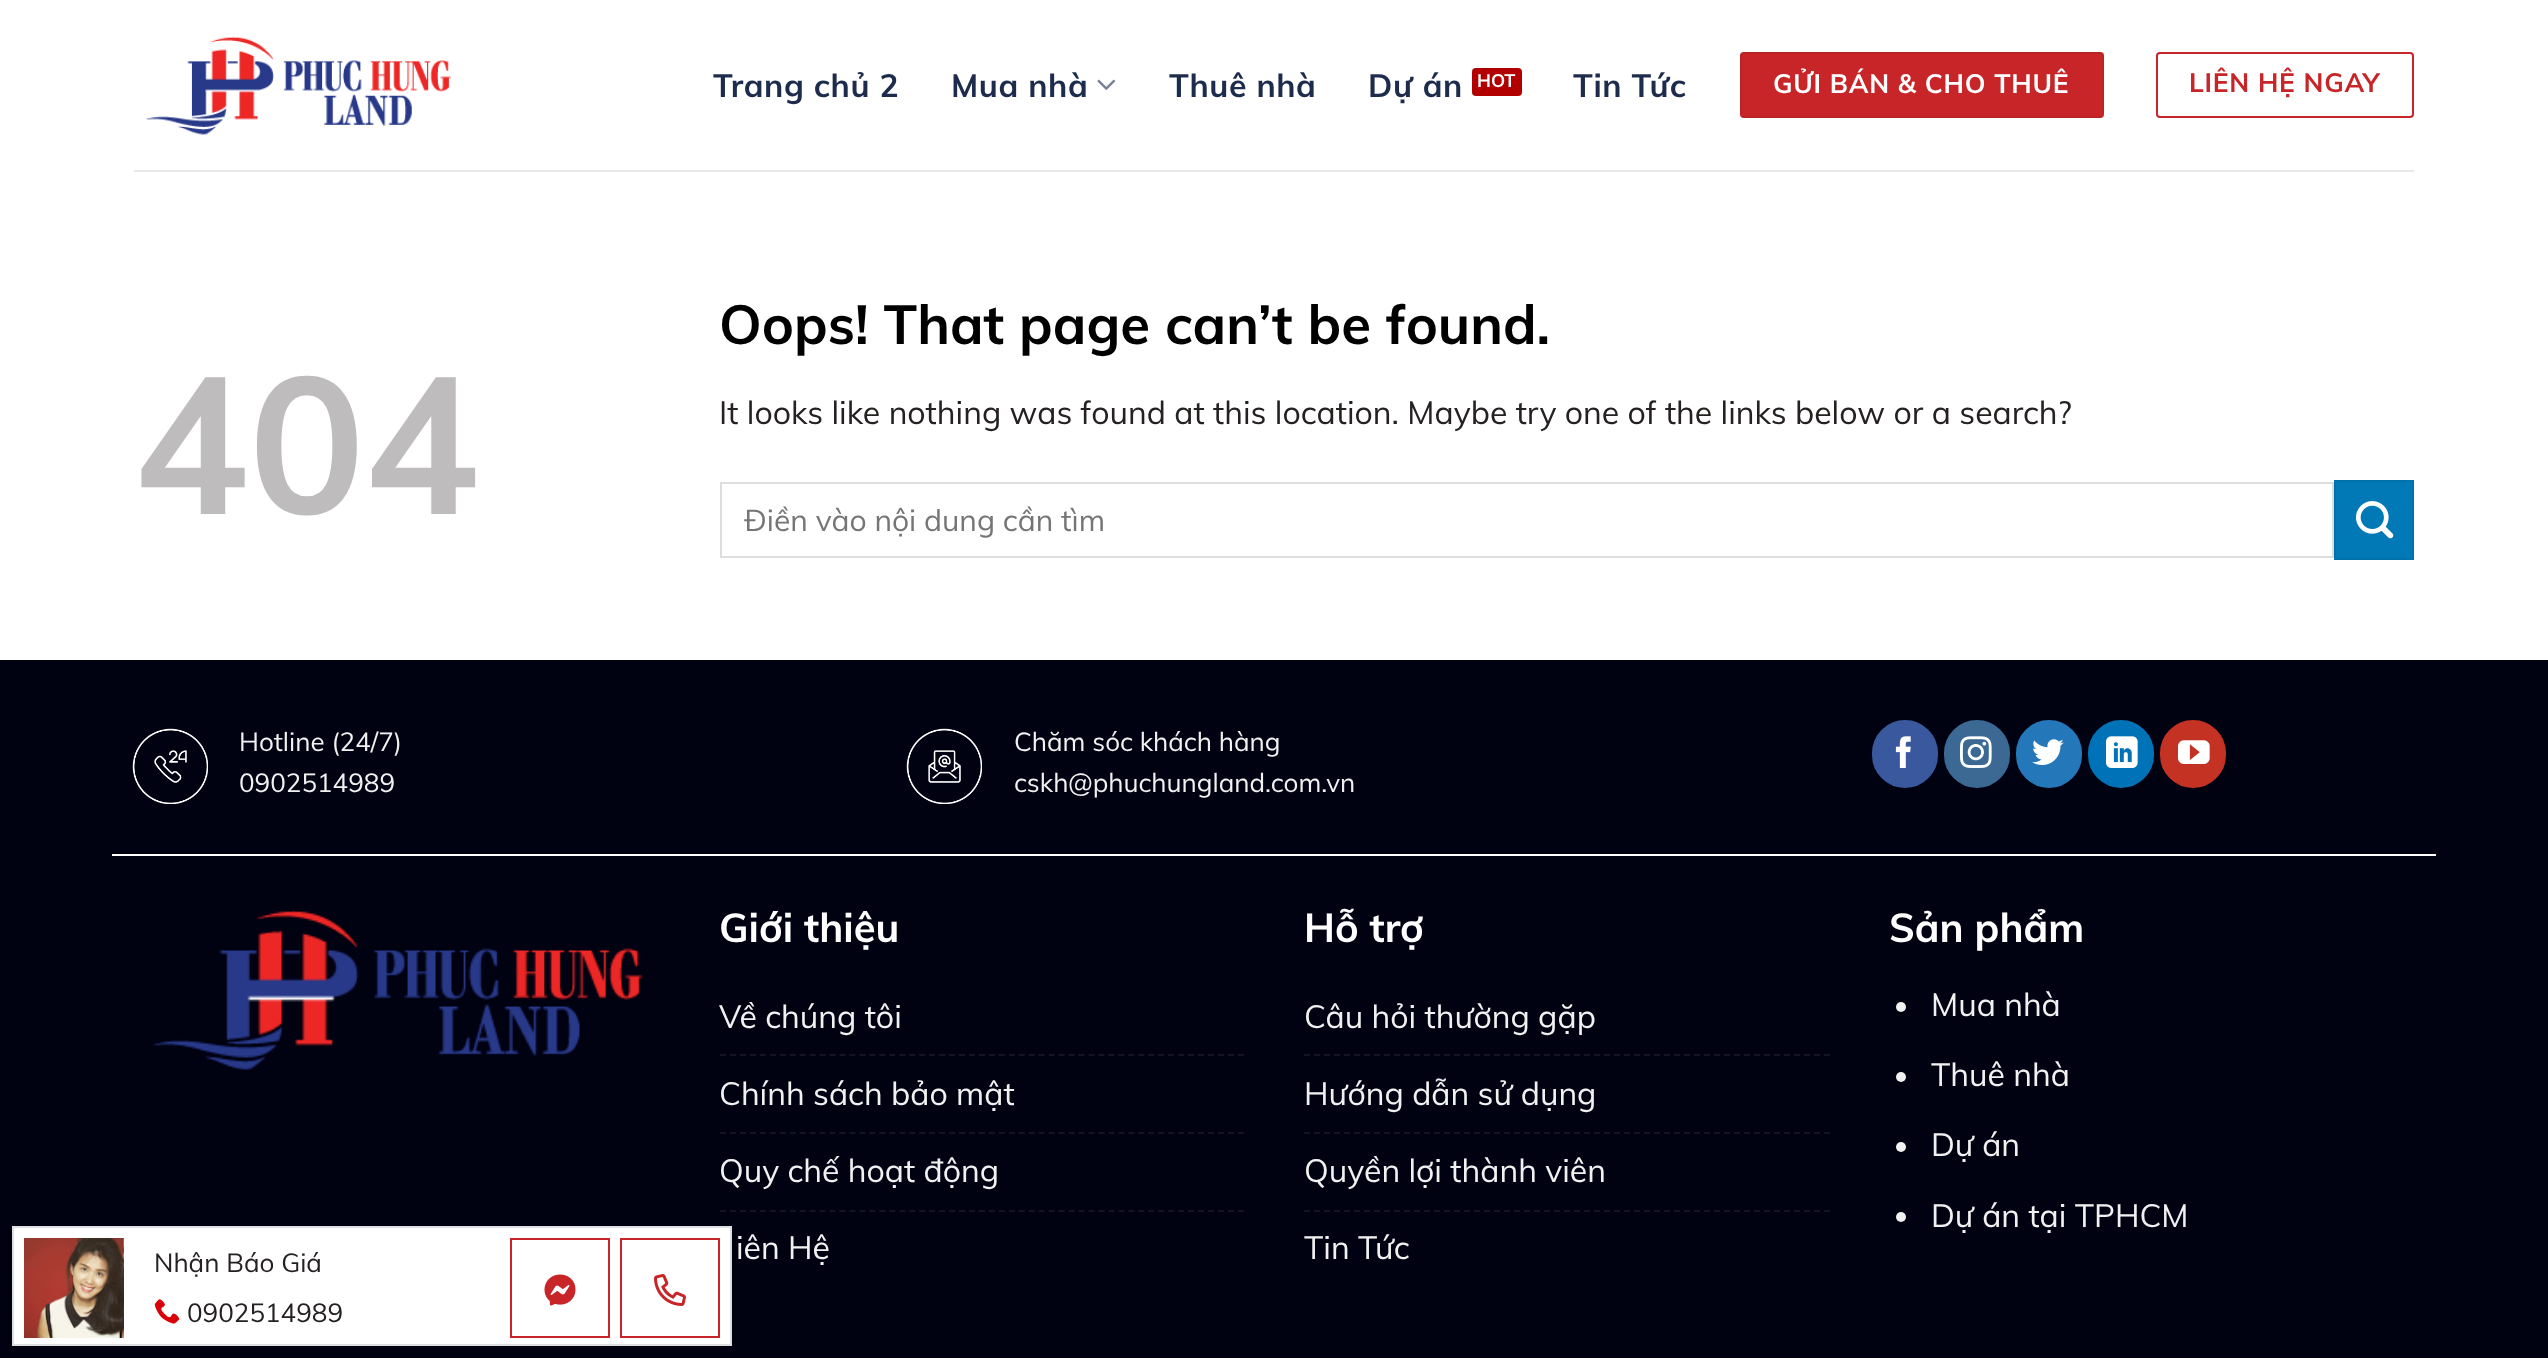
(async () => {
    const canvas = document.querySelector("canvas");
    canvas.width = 2548;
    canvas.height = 1358;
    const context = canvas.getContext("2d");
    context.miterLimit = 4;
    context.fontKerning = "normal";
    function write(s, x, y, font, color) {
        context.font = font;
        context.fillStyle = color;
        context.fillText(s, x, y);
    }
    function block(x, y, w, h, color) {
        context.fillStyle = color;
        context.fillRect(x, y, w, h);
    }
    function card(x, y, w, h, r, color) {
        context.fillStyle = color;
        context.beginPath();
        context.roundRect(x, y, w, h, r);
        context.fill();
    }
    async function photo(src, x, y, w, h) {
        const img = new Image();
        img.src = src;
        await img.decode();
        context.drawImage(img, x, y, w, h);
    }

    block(0, 0, 2548, 1358, "rgb(255, 255, 255)");
    await photo("media/1.png", 146, 36, 306, 99);
    context.letterSpacing = "0.6px";
    write("Trang chủ 2", 713, 97, "bold 32px Muli", "rgb(29, 44, 76)");
    write("Mua nhà", 951, 97, "bold 32px Muli", "rgb(29, 44, 76)");
    await photo("media/2.png", 1097, 79, 19, 11);
    write("Thuê nhà", 1169, 97, "bold 32px Muli", "rgb(29, 44, 76)");
    write("Dự án", 1368, 97, "bold 32px Muli", "rgb(29, 44, 76)");
    card(1472, 68, 50, 28, 4, "rgb(178, 0, 0)");
    context.letterSpacing = "0px";
    write("HOT", 1477, 87, "bold 18px Muli", "rgb(255, 255, 255)");
    context.letterSpacing = "0.6px";
    write("Tin Tức", 1573, 97, "bold 32px Muli", "rgb(29, 44, 76)");
    card(1740, 52, 364, 66, 4, "rgb(199, 37, 40)");
    context.strokeStyle = "rgba(0, 0, 0, 0.05)";
    context.lineWidth = 2;
    context.strokeRect(1741, 53, 362, 64);
    context.letterSpacing = "0.75px";
    write("GỬI BÁN & CHO THUÊ", 1773, 93, "bold 26.4px Muli", "rgb(255, 255, 255)");
    context.beginPath();
    context.roundRect(2157, 53, 256, 64, 3);
    context.strokeStyle = "rgb(199, 37, 40)";
    context.stroke();
    write("LIÊN HỆ NGAY", 2189, 92, "bold 26.4px Muli", "rgb(199, 37, 40)");
    block(134, 170, 2280, 2, "rgb(233, 233, 233)");
    context.letterSpacing = "0px";
    write("404", 134, 514, "bold 192px Muli", "rgb(190, 188, 188)");
    write("Oops! That page can’t be found.", 719, 344, "bold 54.4px Muli", "rgb(0, 0, 0)");
    write("It looks like nothing was found at this location. Maybe try one of the links below or a search?", 719, 424, "32px Muli", "rgb(37, 33, 33)");
    context.strokeStyle = "rgb(221, 221, 221)";
    context.strokeRect(721, 483, 1612, 74);
    write("Điền vào nội dung cần tìm", 744, 531, "30px Muli", "rgb(117, 117, 117)");
    context.fillStyle = "rgb(0, 121, 182)";
    context.beginPath();
    context.rect(2335, 481, 78, 78);
    context.fill();
    context.strokeStyle = "rgb(0, 115, 173)";
    context.stroke();
    await photo("media/3.png", 2356, 501, 38, 38);
    block(0, 660, 2548, 698, "rgb(0, 1, 17)");
    block(112, 854, 2324, 2, "rgb(255, 255, 255)");
    await photo("media/4.png", 132, 728, 76, 76);
    write("Hotline (24/7)", 239, 751, "26px Muli", "rgb(241, 241, 241)");
    write("0902514989", 239, 792, "26px Muli", "rgb(241, 241, 241)");
    await photo("media/5.png", 906, 728, 76, 76);
    write("Chăm sóc khách hàng", 1014, 751, "26px Muli", "rgb(241, 241, 241)");
    write("cskh@phuchungland.com.vn", 1014, 792, "26px Muli", "rgb(241, 241, 241)");
    context.fillStyle = "rgb(58, 88, 157)";
    context.beginPath();
    context.roundRect(1873, 721, 64, 66, 32);
    context.fill();
    context.strokeStyle = "rgb(58, 88, 157)";
    context.stroke();
    await photo("media/6.png", 1895, 736, 16, 32);
    context.fillStyle = "rgb(59, 105, 148)";
    context.beginPath();
    context.roundRect(1945, 721, 64, 66, 32);
    context.fill();
    context.strokeStyle = "rgb(59, 105, 148)";
    context.stroke();
    await photo("media/7.png", 1960, 736, 32, 32);
    context.fillStyle = "rgb(36, 120, 186)";
    context.beginPath();
    context.roundRect(2017, 721, 64, 66, 32);
    context.fill();
    context.strokeStyle = "rgb(36, 120, 186)";
    context.stroke();
    await photo("media/8.png", 2032, 739, 32, 26);
    context.fillStyle = "rgb(0, 114, 183)";
    context.beginPath();
    context.roundRect(2089, 721, 64, 66, 32);
    context.fill();
    context.strokeStyle = "rgb(0, 114, 183)";
    context.stroke();
    await photo("media/9.png", 2106, 736, 32, 32);
    context.fillStyle = "rgb(195, 50, 35)";
    context.beginPath();
    context.roundRect(2161, 721, 64, 66, 32);
    context.fill();
    context.strokeStyle = "rgb(195, 50, 35)";
    context.stroke();
    await photo("media/10.png", 2178, 740, 32, 24);
    await photo("media/11.png", 153, 909, 490, 162);
    write("Giới thiệu", 719, 942, "bold 40px Muli", "rgb(255, 255, 255)");
    write("Về chúng tôi", 719, 1028, "32px Muli", "rgb(241, 241, 241)");
    context.beginPath();
    context.moveTo(720, 1055);
    context.lineTo(1244, 1055);
    context.strokeStyle = "rgb(20, 21, 36)";
    context.setLineDash([6, 3.96]);
    context.stroke();
    write("Chính sách bảo mật", 719, 1105, "32px Muli", "rgb(241, 241, 241)");
    context.beginPath();
    context.moveTo(720, 1133);
    context.lineTo(1244, 1133);
    context.stroke();
    write("Quy chế hoạt động", 719, 1182, "32px Muli", "rgb(241, 241, 241)");
    context.beginPath();
    context.moveTo(720, 1211);
    context.lineTo(1244, 1211);
    context.stroke();
    write("iên Hệ", 736, 1259, "32px Muli", "rgb(241, 241, 241)");
    write("Hỗ trợ", 1304, 942, "bold 40px Muli", "rgb(255, 255, 255)");
    write("Câu hỏi thường gặp", 1304, 1028, "32px Muli", "rgb(241, 241, 241)");
    context.beginPath();
    context.moveTo(1304, 1055);
    context.lineTo(1830, 1055);
    context.setLineDash([6, 4]);
    context.stroke();
    write("Hướng dẫn sử dụng", 1304, 1105, "32px Muli", "rgb(241, 241, 241)");
    context.beginPath();
    context.moveTo(1304, 1133);
    context.lineTo(1830, 1133);
    context.stroke();
    write("Quyền lợi thành viên", 1304, 1182, "32px Muli", "rgb(241, 241, 241)");
    context.beginPath();
    context.moveTo(1304, 1211);
    context.lineTo(1830, 1211);
    context.stroke();
    write("Tin Tức", 1304, 1259, "32px Muli", "rgb(241, 241, 241)");
    write("Sản phẩm", 1889, 942, "bold 40px Muli", "rgb(255, 255, 255)");
    context.fillStyle = "rgb(241, 241, 241)";
    context.beginPath();
    context.arc(1901, 1007, 5, 0, Math.PI * 2);
    context.fill();
    write("Mua nhà", 1931, 1016, "32px Muli", "rgb(241, 241, 241)");
    context.beginPath();
    context.arc(1901, 1077, 5, 0, Math.PI * 2);
    context.fill();
    write("Thuê nhà", 1931, 1086, "32px Muli", "rgb(241, 241, 241)");
    context.beginPath();
    context.arc(1901, 1147, 5, 0, Math.PI * 2);
    context.fill();
    write("Dự án", 1931, 1156, "32px Muli", "rgb(241, 241, 241)");
    context.beginPath();
    context.arc(1901, 1217, 5, 0, Math.PI * 2);
    context.fill();
    write("Dự án tại TPHCM", 1931, 1227, "32px Muli", "rgb(241, 241, 241)");
    context.fillStyle = "rgb(255, 255, 255)";
    context.beginPath();
    context.rect(13, 1227, 718, 118);
    context.fill();
    context.strokeStyle = "rgb(220, 224, 224)";
    context.setLineDash([]);
    context.stroke();
    await photo("media/12.png", 24, 1238, 100, 100);
    write("Nhận Báo Giá", 154, 1272, "26px Muli", "rgb(37, 33, 33)");
    await photo("media/13.png", 154, 1299, 26, 25);
    write("0902514989", 187, 1322, "26px Muli", "rgb(37, 33, 33)");
    context.strokeStyle = "rgb(199, 37, 40)";
    context.strokeRect(511, 1239, 98, 98);
    await photo("media/14.png", 544, 1274, 32, 32);
    context.strokeRect(621, 1239, 98, 98);
    await photo("media/15.png", 654, 1274, 32, 32);
})();
